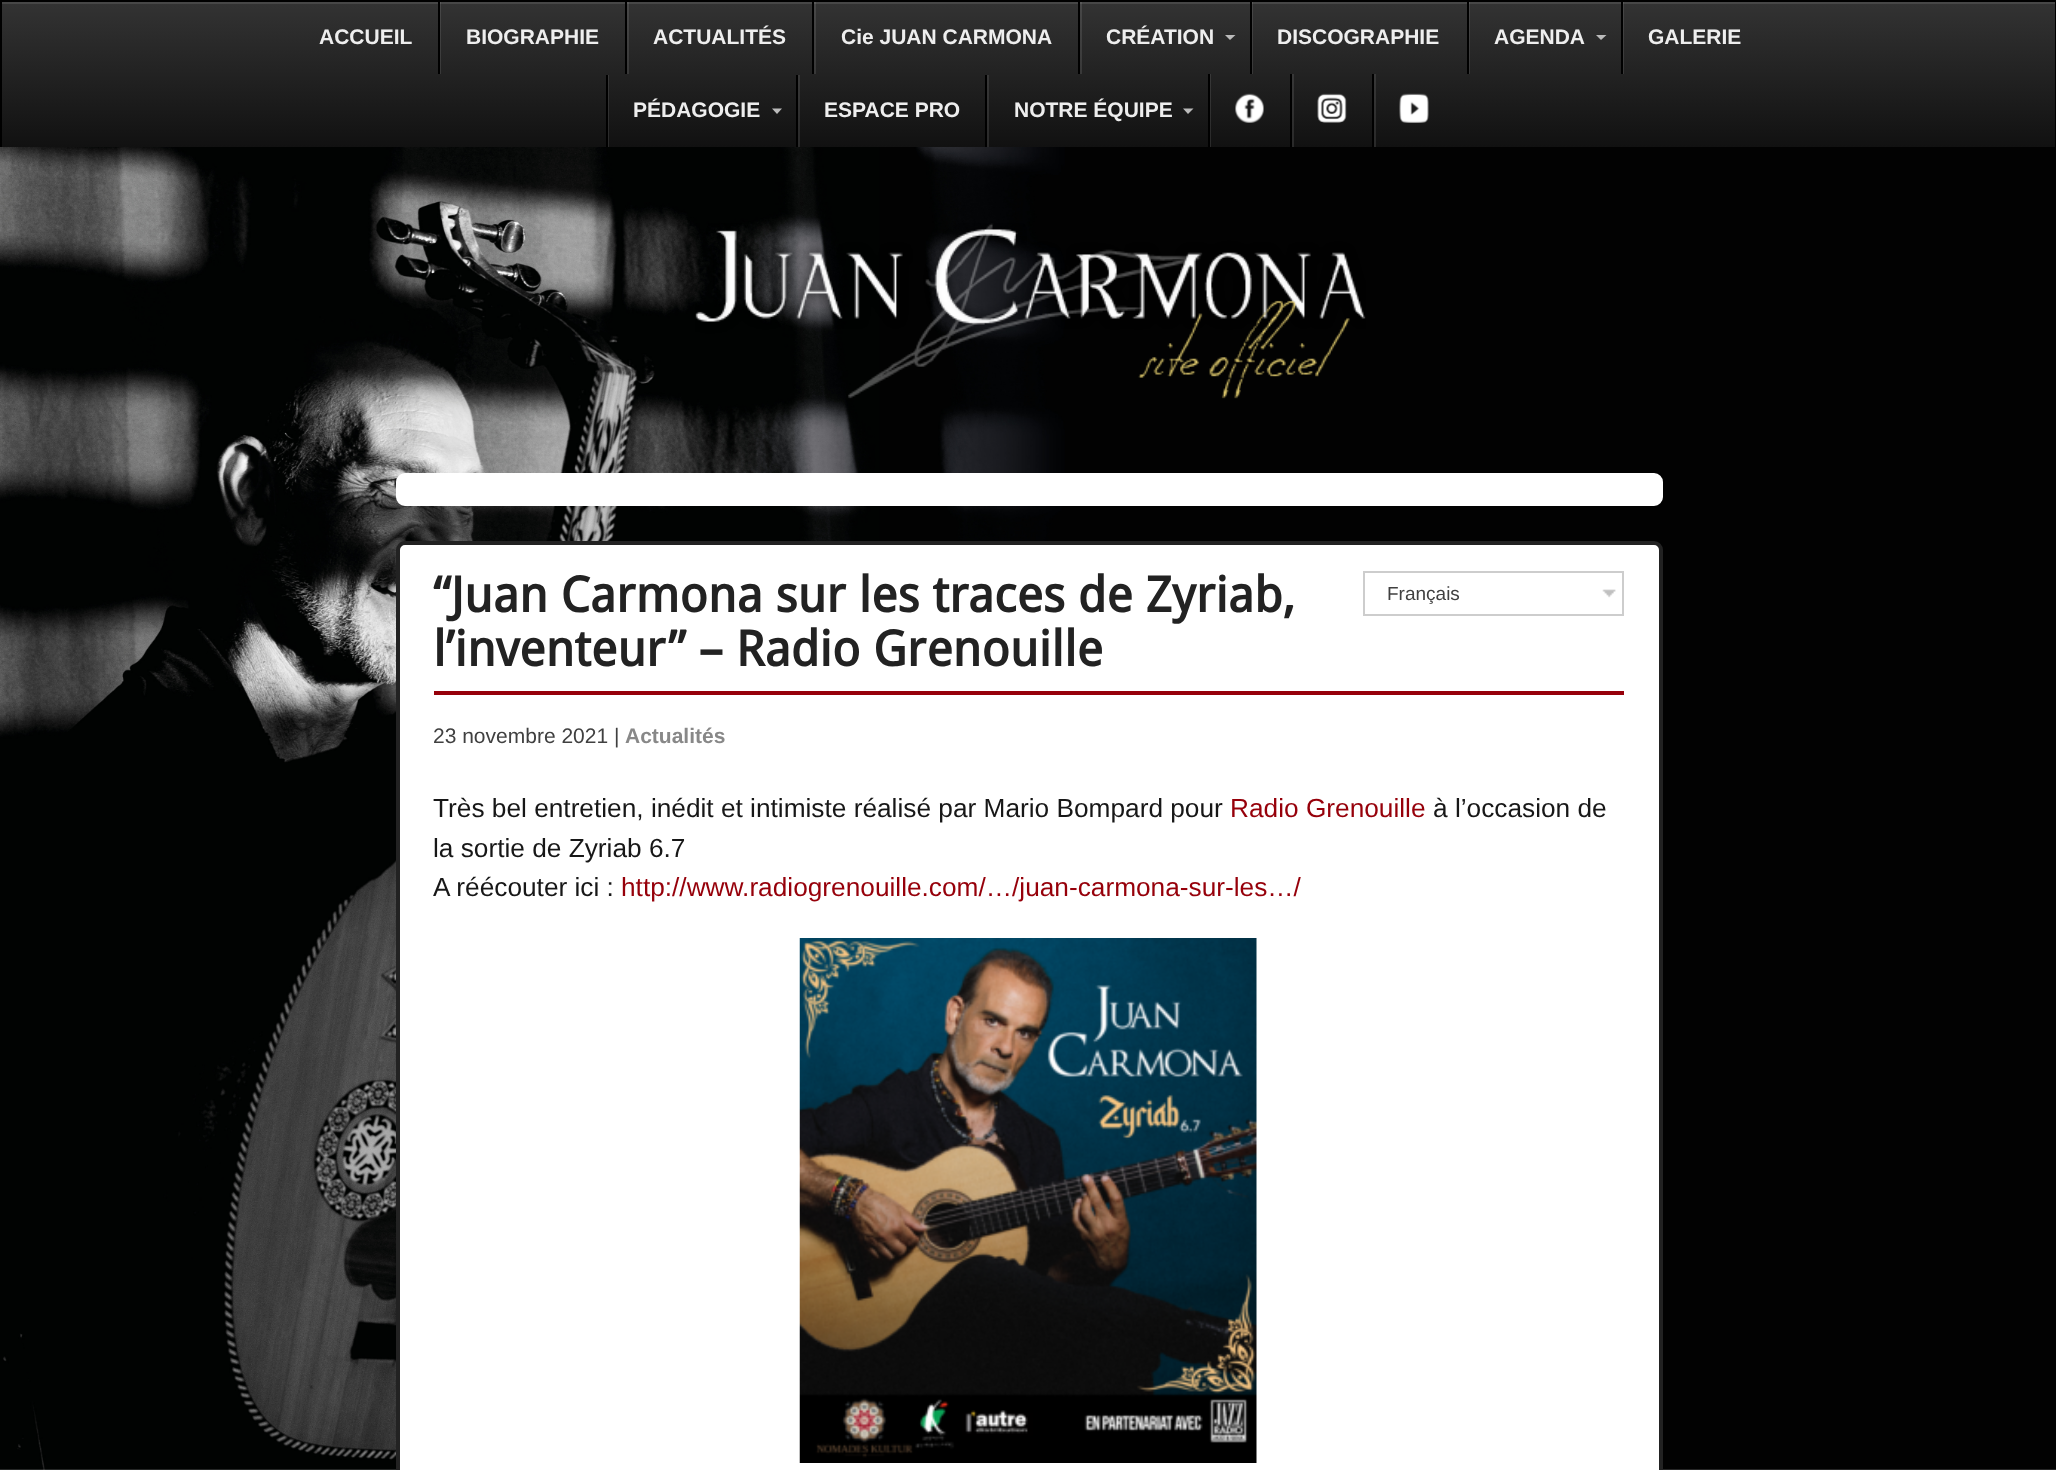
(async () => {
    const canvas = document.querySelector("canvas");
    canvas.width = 2056;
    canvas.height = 1470;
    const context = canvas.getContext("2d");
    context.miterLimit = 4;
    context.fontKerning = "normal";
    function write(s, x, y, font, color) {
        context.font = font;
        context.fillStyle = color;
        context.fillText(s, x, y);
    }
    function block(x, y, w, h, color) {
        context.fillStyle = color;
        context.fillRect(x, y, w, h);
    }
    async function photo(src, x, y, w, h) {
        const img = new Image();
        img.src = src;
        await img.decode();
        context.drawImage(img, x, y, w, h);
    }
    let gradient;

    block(0, 0, 2056, 1470, "rgb(255, 255, 255)");
    await photo("media/1.png", 0, 147, 2056, 1323);
    gradient = context.createLinearGradient(1028, 1.7, 1028, 147);
    gradient.addColorStop(0, "rgb(51, 51, 51)");
    gradient.addColorStop(1, "rgb(17, 17, 17)");
    context.fillStyle = gradient;
    context.fillRect(2, 4, 2053, 143);
    block(2, 2, 2053, 2, "rgb(71, 71, 71)");
    block(0, 0, 2056, 2, "rgb(0, 0, 0)");
    block(2055, 0, 1, 147, "rgb(0, 0, 0)");
    block(0, 0, 2, 147, "rgb(0, 0, 0)");
    write("ACCUEIL", 319, 44, "bold 21px Liberation Sans", "rgb(238, 238, 238)");
    block(440, 2, 1, 72, "rgba(255, 255, 255, 0.1)");
    block(438, 2, 2, 72, "rgb(0, 0, 0)");
    write("BIOGRAPHIE", 466, 44, "bold 21px Liberation Sans", "rgb(238, 238, 238)");
    block(627, 2, 2, 72, "rgba(255, 255, 255, 0.1)");
    block(625, 2, 2, 72, "rgb(0, 0, 0)");
    write("ACTUALITÉS", 653, 44, "bold 21px Liberation Sans", "rgb(238, 238, 238)");
    block(814, 2, 2, 72, "rgba(255, 255, 255, 0.1)");
    block(812, 2, 2, 72, "rgb(0, 0, 0)");
    write("Cie JUAN CARMONA", 841, 44, "bold 21px Liberation Sans", "rgb(238, 238, 238)");
    block(1080, 2, 2, 72, "rgba(255, 255, 255, 0.1)");
    block(1078, 2, 2, 72, "rgb(0, 0, 0)");
    write("CRÉATION", 1106, 44, "bold 21px Liberation Sans", "rgb(238, 238, 238)");
    context.fillStyle = "rgb(187, 187, 187)";
    context.beginPath();
    context.moveTo(1225, 35);
    context.lineTo(1235.5, 35);
    context.lineTo(1230, 40);
    context.closePath();
    context.fill();
    block(1252, 2, 1, 72, "rgba(255, 255, 255, 0.1)");
    block(1250, 2, 2, 72, "rgb(0, 0, 0)");
    write("DISCOGRAPHIE", 1277, 44, "bold 21px Liberation Sans", "rgb(238, 238, 238)");
    block(1469, 2, 1, 72, "rgba(255, 255, 255, 0.1)");
    block(1467, 2, 2, 72, "rgb(0, 0, 0)");
    write("AGENDA", 1494, 44, "bold 21px Liberation Sans", "rgb(238, 238, 238)");
    context.fillStyle = "rgb(187, 187, 187)";
    context.beginPath();
    context.moveTo(1596, 35);
    context.lineTo(1606.5, 35);
    context.lineTo(1601, 40);
    context.closePath();
    context.fill();
    block(1623, 2, 1, 72, "rgba(255, 255, 255, 0.1)");
    block(1621, 2, 2, 72, "rgb(0, 0, 0)");
    write("GALERIE", 1648, 44, "bold 21px Liberation Sans", "rgb(238, 238, 238)");
    block(608, 75, 1, 72, "rgba(255, 255, 255, 0.1)");
    block(606, 75, 2, 72, "rgb(0, 0, 0)");
    write("PÉDAGOGIE", 633, 117, "bold 21px Liberation Sans", "rgb(238, 238, 238)");
    context.fillStyle = "rgb(187, 187, 187)";
    context.beginPath();
    context.moveTo(772, 108.5);
    context.lineTo(782, 108.5);
    context.lineTo(777, 114);
    context.closePath();
    context.fill();
    block(798, 75, 2, 72, "rgba(255, 255, 255, 0.1)");
    block(796, 75, 2, 72, "rgb(0, 0, 0)");
    write("ESPACE PRO", 824, 117, "bold 21px Liberation Sans", "rgb(238, 238, 238)");
    block(987, 75, 2, 72, "rgba(255, 255, 255, 0.1)");
    block(985, 75, 2, 72, "rgb(0, 0, 0)");
    write("NOTRE ÉQUIPE", 1014, 117, "bold 21px Liberation Sans", "rgb(238, 238, 238)");
    context.fillStyle = "rgb(187, 187, 187)";
    context.beginPath();
    context.moveTo(1183, 108.5);
    context.lineTo(1193.5, 108.5);
    context.lineTo(1188, 114);
    context.closePath();
    context.fill();
    block(1210, 74, 1, 73, "rgba(255, 255, 255, 0.1)");
    block(1208, 74, 2, 73, "rgb(0, 0, 0)");
    await photo("media/2.png", 1235, 93, 29, 30);
    block(1292, 74, 2, 73, "rgba(255, 255, 255, 0.1)");
    block(1290, 74, 2, 73, "rgb(0, 0, 0)");
    await photo("media/3.png", 1317, 93, 30, 30);
    block(1374, 74, 2, 73, "rgba(255, 255, 255, 0.1)");
    block(1372, 74, 2, 73, "rgb(0, 0, 0)");
    await photo("media/4.png", 1399, 93, 30, 30);
    await photo("media/5.png", 695, 223, 671, 176);
    context.fillStyle = "rgb(255, 255, 255)";
    context.beginPath();
    context.roundRect(398, 475, 1263, 29, 7);
    context.fill();
    context.strokeStyle = "rgb(255, 255, 255)";
    context.lineWidth = 4;
    context.stroke();
    context.beginPath();
    context.roundRect(398, 543, 1263, 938, 7);
    context.fill();
    context.strokeStyle = "rgb(34, 34, 34)";
    context.stroke();
    block(434, 691, 1190, 4, "rgb(150, 0, 10)");
    write("“Juan Carmona sur les traces de Zyriab,", 433, 612, "bold 49px Droid Sans", "rgb(34, 34, 34)");
    write("l’inventeur” – Radio Grenouille", 433, 666, "bold 49px Droid Sans", "rgb(34, 34, 34)");
    write("23 novembre 2021 |", 433, 743, "21px Liberation Sans", "rgb(64, 64, 64)");
    write("Actualités", 625, 743, "bold 21px Liberation Sans", "rgb(136, 136, 136)");
    write("Très bel entretien, inédit et intimiste réalisé par Mario Bompard pour", 433, 817, "26.25px Liberation Sans", "rgb(23, 23, 23)");
    write("Radio Grenouille", 1230, 817, "26.25px Liberation Sans", "rgb(150, 0, 10)");
    write("à l’occasion de", 1433, 817, "26.25px Liberation Sans", "rgb(23, 23, 23)");
    write("la sortie de Zyriab 6.7", 433, 857, "26.25px Liberation Sans", "rgb(23, 23, 23)");
    write("A réécouter ici :", 433, 896, "26.25px Liberation Sans", "rgb(23, 23, 23)");
    write("http://www.radiogrenouille.com/…/juan-carmona-sur-les…/", 621, 896, "26.25px Liberation Sans", "rgb(150, 0, 10)");
    await photo("media/6.png", 799, 938, 458, 525);
    await photo("media/7.png", 1602, 589, 14, 9);
    context.strokeStyle = "rgb(205, 205, 205)";
    context.lineWidth = 2;
    context.strokeRect(1364, 572, 259, 43);
    write("Français", 1387, 600, "19px Liberation Sans", "rgb(64, 64, 64)");
})();
